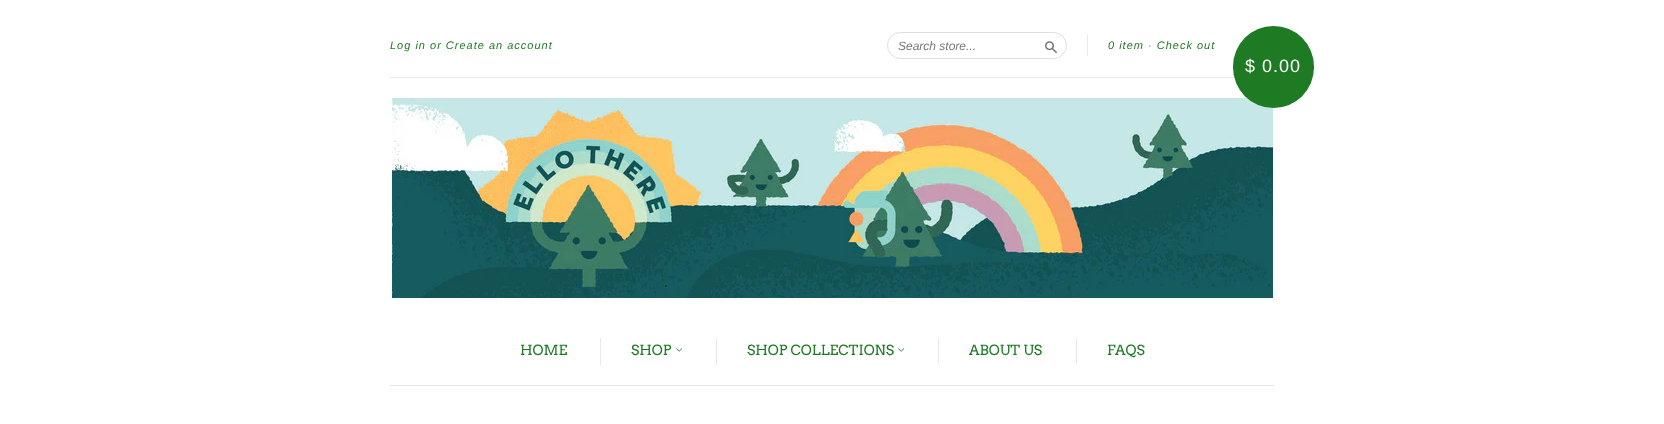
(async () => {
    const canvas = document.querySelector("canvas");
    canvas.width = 1664;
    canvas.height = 424;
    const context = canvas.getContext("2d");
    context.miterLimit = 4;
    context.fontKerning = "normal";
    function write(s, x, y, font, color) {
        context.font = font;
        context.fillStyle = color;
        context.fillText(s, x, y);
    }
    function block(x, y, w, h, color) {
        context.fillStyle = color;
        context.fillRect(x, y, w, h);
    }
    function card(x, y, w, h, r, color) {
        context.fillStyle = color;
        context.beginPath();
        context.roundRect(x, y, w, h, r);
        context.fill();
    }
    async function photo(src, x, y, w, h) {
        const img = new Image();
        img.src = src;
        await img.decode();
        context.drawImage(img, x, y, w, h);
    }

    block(0, 0, 1664, 424, "rgb(255, 255, 255)");
    block(390, 385, 884, 1, "rgb(232, 232, 232)");
    block(390, 77, 845, 1, "rgb(232, 232, 232)");
    context.letterSpacing = "1px";
    write("Log in or Create an account", 390, 49, "italic 11px Liberation Sans", "rgb(30, 122, 35)");
    context.beginPath();
    context.roundRect(887.5, 32.5, 179, 26, 13);
    context.strokeStyle = "rgb(222, 222, 222)";
    context.stroke();
    context.letterSpacing = "0px";
    write("Search store...", 898, 50, "italic 12px Liberation Sans", "rgb(119, 119, 119)");
    await photo("media/1.png", 1045, 41, 12, 13);
    block(1087, 35, 1, 21, "rgb(232, 232, 232)");
    context.letterSpacing = "1px";
    write("0 item · Check out", 1108, 49, "italic 11px Liberation Sans", "rgb(30, 122, 35)");
    await photo("media/2.png", 392, 98, 881, 200);
    card(1233, 26, 81, 82, 40.5, "rgb(30, 122, 35)");
    write("$ 0.00", 1245, 72, "18px Liberation Sans", "rgb(255, 255, 255)");
    context.letterSpacing = "0px";
    write("HOME", 520, 355, "14px Arvo", "rgb(30, 122, 35)");
    block(600, 338, 1, 27, "rgb(232, 232, 232)");
    write("SHOP", 631, 355, "14px Arvo", "rgb(30, 122, 35)");
    await photo("media/3.png", 676, 348, 7, 4);
    block(716, 338, 1, 27, "rgb(232, 232, 232)");
    write("SHOP COLLECTIONS", 747, 355, "14px Arvo", "rgb(30, 122, 35)");
    await photo("media/3.png", 898, 348, 7, 4);
    block(938, 338, 1, 25, "rgb(232, 232, 232)");
    write("ABOUT US", 969, 355, "14px Arvo", "rgb(30, 122, 35)");
    block(1076, 338, 1, 25, "rgb(232, 232, 232)");
    write("FAQS", 1107, 355, "14px Arvo", "rgb(30, 122, 35)");
})();
